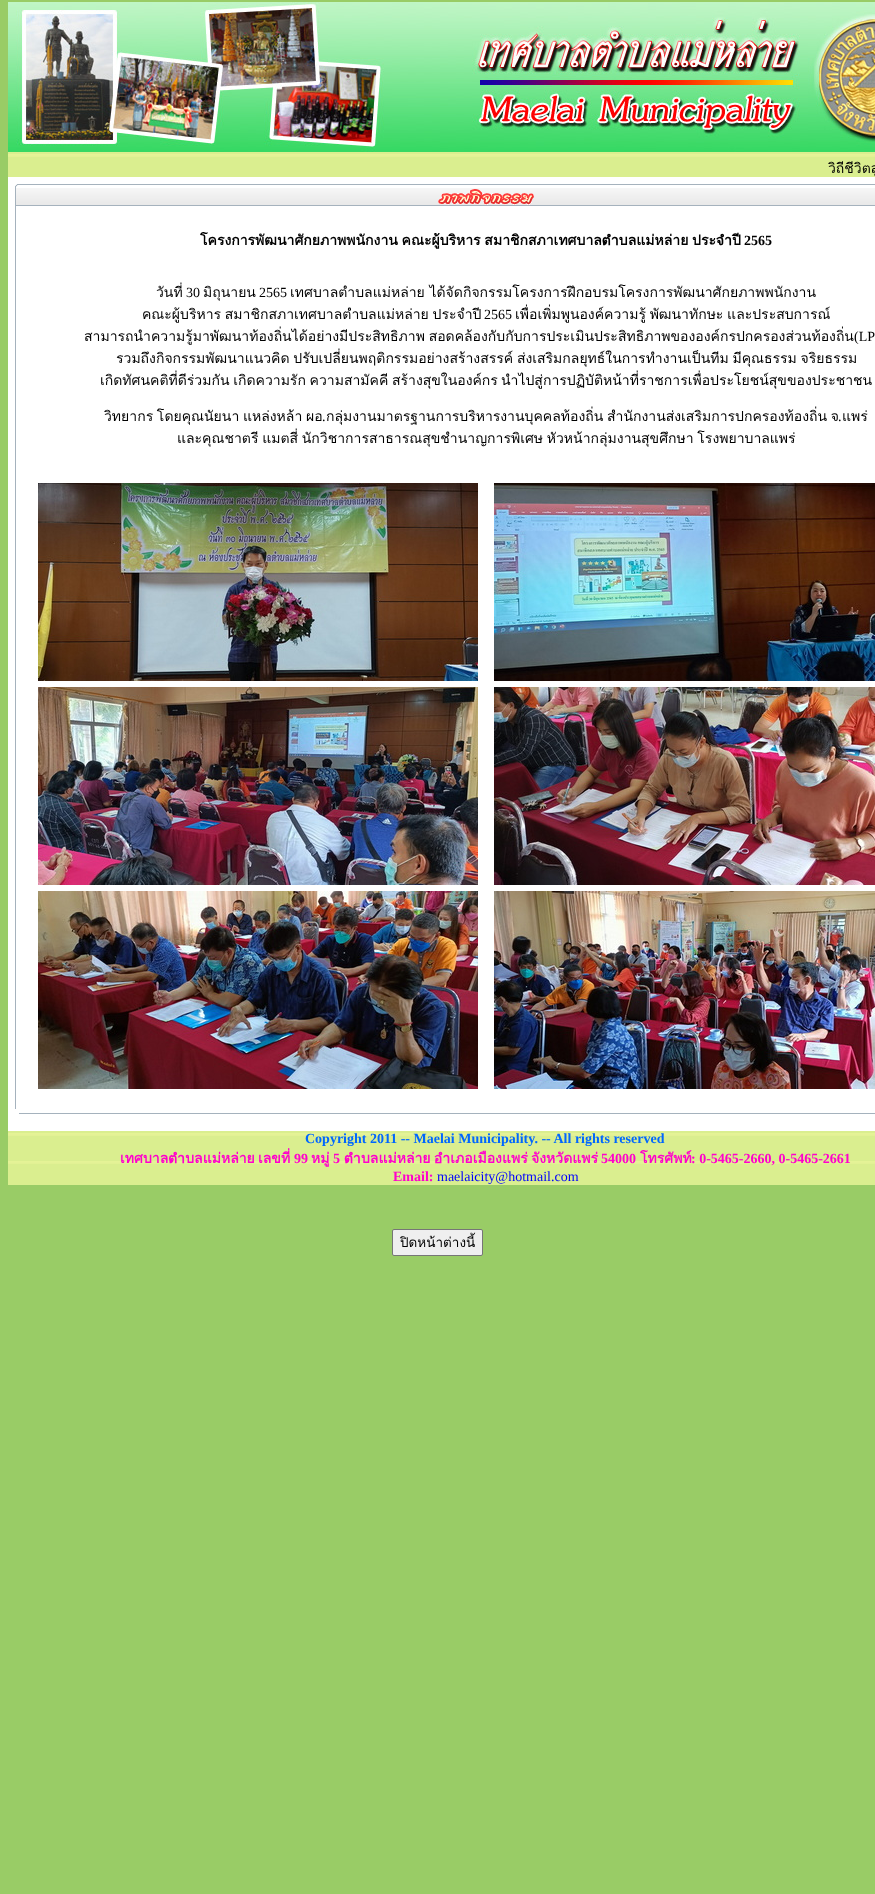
(async () => {
    const canvas = document.querySelector("canvas");
    canvas.width = 875;
    canvas.height = 1894;
    const context = canvas.getContext("2d");
    context.miterLimit = 4;
    context.fontKerning = "normal";
    function write(s, x, y, font, color) {
        context.font = font;
        context.fillStyle = color;
        context.fillText(s, x, y);
    }
    function block(x, y, w, h, color) {
        context.fillStyle = color;
        context.fillRect(x, y, w, h);
    }
    async function photo(src, x, y, w, h) {
        const img = new Image();
        img.src = src;
        await img.decode();
        context.drawImage(img, x, y, w, h);
    }

    block(0, 0, 875, 1894, "rgb(153, 204, 102)");
    block(8, 177, 867, 954, "rgb(255, 255, 255)");
    await photo("media/1.png", 8, 2, 867, 150);
    await photo("media/2.png", 8, 152, 867, 25);
    context.wordSpacing = "-1px";
    write("วิถีชีวิตสู่", 828, 173, "14px Loma", "rgb(0, 0, 0)");
    await photo("media/3.png", 15, 184, 4, 29);
    await photo("media/4.png", 19, 184, 856, 22);
    await photo("media/5.png", 438, 189, 96, 16);
    block(15, 213, 1, 896, "rgb(165, 178, 189)");
    write("โครงการพัฒนาศักยภาพพนักงาน คณะผู้บริหาร สมาชิกสภาเทศบาลตำบลแม่หล่าย ประจำปี", 200, 245, "bold 14px Loma", "rgb(0, 0, 0)");
    context.wordSpacing = "0px";
    write("2565", 744, 245, "bold 14px Liberation Serif", "rgb(0, 0, 0)");
    write("วันที่", 156, 297, "14px Loma", "rgb(0, 0, 0)");
    write("30", 186, 297, "14px Liberation Serif", "rgb(0, 0, 0)");
    write("มิถุนายน", 203, 297, "14px Loma", "rgb(0, 0, 0)");
    write("2565", 259, 297, "14px Liberation Serif", "rgb(0, 0, 0)");
    write("เทศบาลตำบลแม่หล่าย ได้จัดกิจกรรมโครงการฝึกอบรมโครงการพัฒนาศักยภาพพนักงาน", 290, 297, "14px Loma", "rgb(0, 0, 0)");
    context.wordSpacing = "-1px";
    write("คณะผู้บริหาร สมาชิกสภาเทศบาลตำบลแม่หล่าย ประจำปี", 142, 319, "14px Loma", "rgb(0, 0, 0)");
    context.wordSpacing = "0px";
    write("2565", 484, 319, "14px Liberation Serif", "rgb(0, 0, 0)");
    context.wordSpacing = "-1px";
    write("เพื่อเพิ่มพูนองค์ความรู้ พัฒนาทักษะ และประสบการณ์", 515, 319, "14px Loma", "rgb(0, 0, 0)");
    write("สามารถนำความรู้มาพัฒนาท้องถิ่นได้อย่างมีประสิทธิภาพ สอดคล้องกับกับการประเมินประสิทธิภาพขององค์กรปกครองส่วนท้องถิ่น", 84, 341, "14px Loma", "rgb(0, 0, 0)");
    context.wordSpacing = "0px";
    write("(LP", 854, 341, "14px Liberation Serif", "rgb(0, 0, 0)");
    context.wordSpacing = "-1px";
    write("รวมถึงกิจกรรมพัฒนาแนวคิด ปรับเปลี่ยนพฤติกรรมอย่างสร้างสรรค์ ส่งเสริมกลยุทธ์ในการทำงานเป็นทีม มีคุณธรรม จริยธรรม", 116, 363, "14px Loma", "rgb(0, 0, 0)");
    write("เกิดทัศนคติที่ดีร่วมกัน เกิดความรัก ความสามัคคี สร้างสุขในองค์กร", 100, 385, "14px Loma", "rgb(0, 0, 0)");
    context.wordSpacing = "0px";
    write("นำไปสู่การปฏิบัติหน้าที่ราชการเพื่อประโยชน์สุขของประชาชน", 501, 385, "14px Loma", "rgb(0, 0, 0)");
    context.wordSpacing = "-1px";
    write("วิทยากร โดยคุณนัยนา แหล่งหล้า ผอ", 104, 421, "14px Loma", "rgb(0, 0, 0)");
    context.wordSpacing = "0px";
    write(".", 322, 421, "14px Liberation Serif", "rgb(0, 0, 0)");
    context.wordSpacing = "-1px";
    write("กลุ่มงานมาตรฐานการบริหารงานบุคคลท้องถิ่น สำนักงานส่งเสริมการปกครองท้องถิ่น จ", 326, 421, "14px Loma", "rgb(0, 0, 0)");
    context.wordSpacing = "0px";
    write(".", 838, 421, "14px Liberation Serif", "rgb(0, 0, 0)");
    write("แพร่", 842, 421, "14px Loma", "rgb(0, 0, 0)");
    context.wordSpacing = "-1px";
    write("และคุณชาตรี แมตสี่ นักวิชาการสาธารณสุขชำนาญการพิเศษ หัวหน้ากลุ่มงานสุขศึกษา โรงพยาบาลแพร่", 177, 443, "14px Loma", "rgb(0, 0, 0)");
    await photo("media/6.png", 38, 483, 440, 198);
    await photo("media/7.png", 494, 483, 381, 198);
    await photo("media/8.png", 38, 687, 440, 198);
    await photo("media/9.png", 494, 687, 381, 198);
    await photo("media/10.png", 38, 891, 440, 198);
    await photo("media/11.png", 494, 891, 381, 198);
    block(19, 1113, 856, 1, "rgb(165, 178, 189)");
    await photo("media/12.png", 8, 1131, 867, 54);
    context.wordSpacing = "0px";
    write("Copyright 2011 -- Maelai Municipality. -- All rights reserved", 305, 1143, "bold 14px Liberation Serif", "rgb(0, 102, 255)");
    write("เทศบาลตำบลแม่หล่าย", 120, 1163, "bold 14px Loma", "rgb(255, 0, 204)");
    write("เลขที่", 258, 1163, "bold 14px Loma", "rgb(255, 0, 204)");
    write("99", 294, 1163, "bold 14px Liberation Serif", "rgb(255, 0, 204)");
    write("หมู่", 311, 1163, "bold 14px Loma", "rgb(255, 0, 204)");
    write("5", 333, 1163, "bold 14px Liberation Serif", "rgb(255, 0, 204)");
    write("ตำบลแม่หล่าย", 344, 1163, "bold 14px Loma", "rgb(255, 0, 204)");
    write("อำเภอเมืองแพร่", 434, 1163, "bold 14px Loma", "rgb(255, 0, 204)");
    write("จังหวัดแพร่", 531, 1163, "bold 14px Loma", "rgb(255, 0, 204)");
    write("54000", 601, 1163, "bold 14px Liberation Serif", "rgb(255, 0, 204)");
    write("โทรศัพท์", 640, 1163, "bold 14px Loma", "rgb(255, 0, 204)");
    write(": 0-5465-2660, 0-5465-2661", 691, 1163, "bold 14px Liberation Serif", "rgb(255, 0, 204)");
    write("Email:", 393, 1181, "bold 14px Liberation Serif", "rgb(255, 0, 204)");
    write("maelaicity@hotmail.com", 437, 1181, "14px Liberation Serif", "rgb(0, 0, 255)");
    context.fillStyle = "rgb(239, 239, 239)";
    context.beginPath();
    context.roundRect(392.5, 1229.5, 90, 26, 1.5);
    context.fill();
    context.strokeStyle = "rgb(118, 118, 118)";
    context.stroke();
    write("ปิดหน้าต่างนี้", 400, 1247, "13.5px Loma", "rgb(0, 0, 0)");
})();
